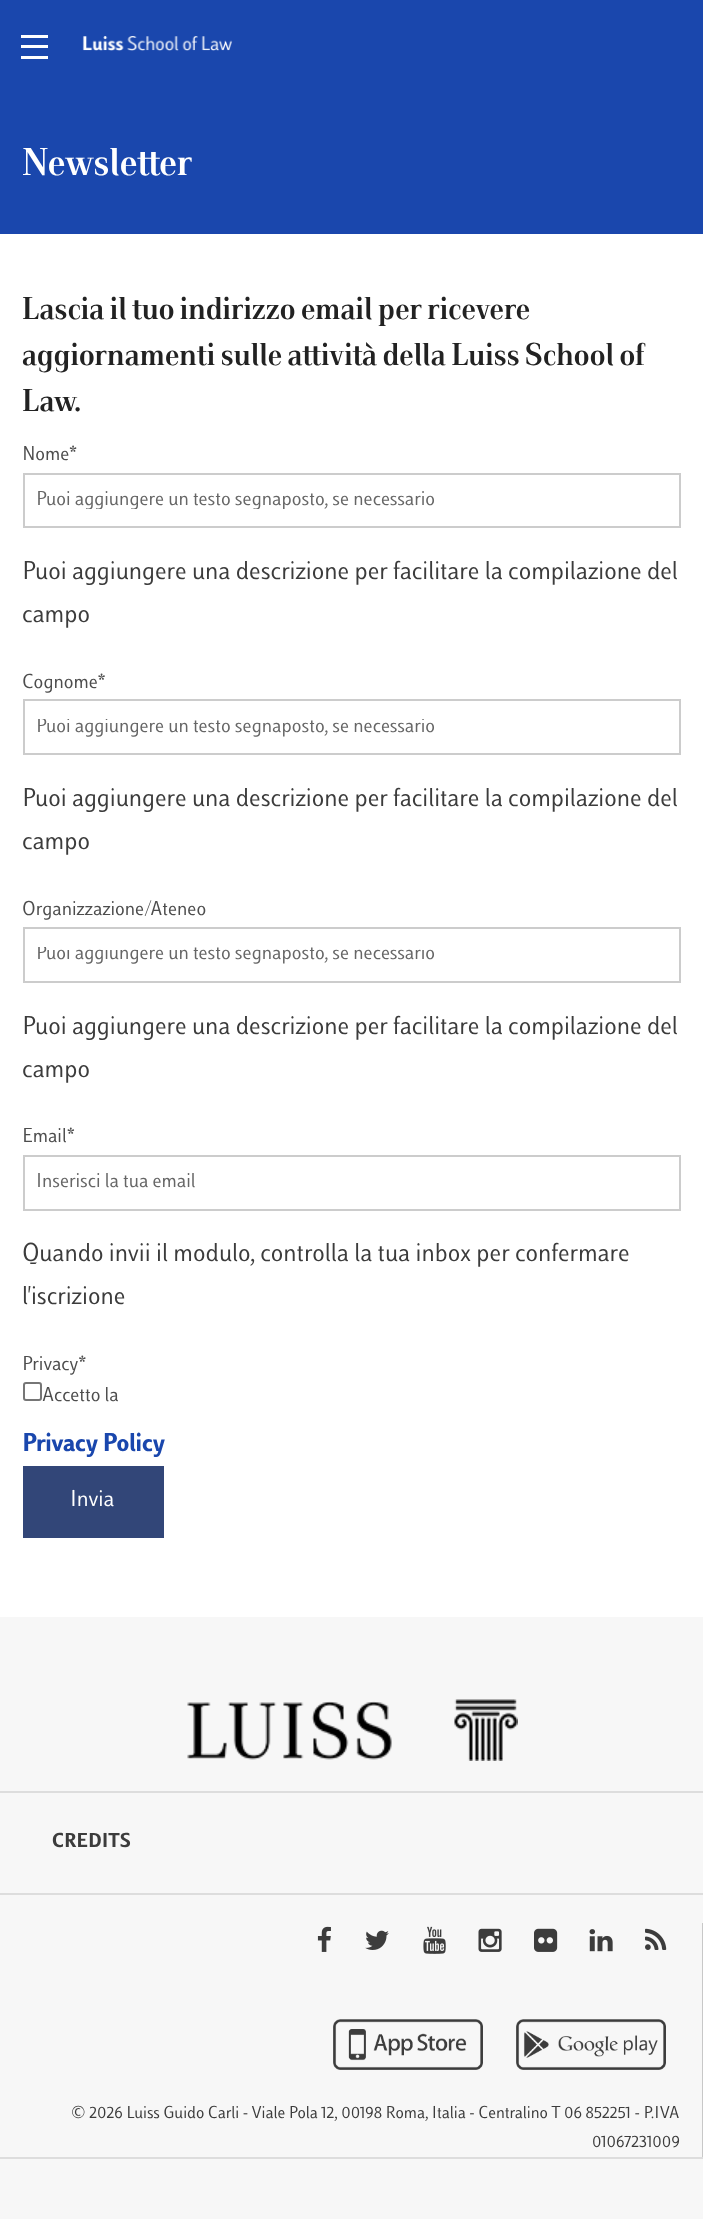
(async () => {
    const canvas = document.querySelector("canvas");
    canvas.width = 703;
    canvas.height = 2219;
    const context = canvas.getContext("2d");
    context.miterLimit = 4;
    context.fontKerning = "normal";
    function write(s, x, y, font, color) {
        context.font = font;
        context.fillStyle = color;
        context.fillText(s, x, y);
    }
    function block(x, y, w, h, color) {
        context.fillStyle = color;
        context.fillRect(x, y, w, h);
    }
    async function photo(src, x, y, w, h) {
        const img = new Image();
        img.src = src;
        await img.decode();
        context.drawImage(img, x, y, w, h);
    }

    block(0, 0, 703, 2219, "rgb(255, 255, 255)");
    block(0, 0, 703, 234, "rgb(26, 71, 173)");
    block(21, 56, 27, 3, "rgb(255, 255, 255)");
    block(21, 45, 27, 3, "rgb(255, 255, 255)");
    block(21, 35, 27, 3, "rgb(255, 255, 255)");
    await photo("media/1.png", 82, 36, 151, 15);
    write("Newsletter", 22, 175, "bold 40.5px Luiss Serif", "rgb(255, 255, 255)");
    write("Lascia il tuo indirizzo email per ricevere", 22, 319, "bold 33px Luiss Serif", "rgb(34, 34, 34)");
    write("aggiornamenti sulle attività della Luiss School of", 22, 365, "bold 33px Luiss Serif", "rgb(34, 34, 34)");
    write("Law.", 22, 411, "bold 33px Luiss Serif", "rgb(34, 34, 34)");
    write("Nome*", 22, 460, "21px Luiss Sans", "rgb(77, 77, 77)");
    context.strokeStyle = "rgb(204, 204, 204)";
    context.lineWidth = 2;
    context.strokeRect(24, 474, 656, 53);
    context.save();
    context.beginPath();
    context.rect(36, 491, 632, 18);
    context.clip();
    write("Puoi aggiungere un testo segnaposto, se necessario", 36, 505, "21px Luiss Sans", "rgb(102, 102, 102)");
    context.restore();
    write("Puoi aggiungere una descrizione per facilitare la compilazione del", 22, 579, "27px Luiss Sans", "rgb(60, 60, 60)");
    write("campo", 22, 622, "27px Luiss Sans", "rgb(60, 60, 60)");
    write("Cognome*", 22, 688, "21px Luiss Sans", "rgb(77, 77, 77)");
    context.strokeRect(24, 700, 656, 54);
    context.save();
    context.beginPath();
    context.rect(36, 719, 632, 18);
    context.clip();
    write("Puoi aggiungere un testo segnaposto, se necessario", 36, 732, "21px Luiss Sans", "rgb(102, 102, 102)");
    context.restore();
    write("Puoi aggiungere una descrizione per facilitare la compilazione del", 22, 806, "27px Luiss Sans", "rgb(60, 60, 60)");
    write("campo", 22, 849, "27px Luiss Sans", "rgb(60, 60, 60)");
    write("Organizzazione/Ateneo", 22, 915, "21px Luiss Sans", "rgb(77, 77, 77)");
    context.strokeRect(24, 928, 656, 54);
    context.save();
    context.beginPath();
    context.rect(36, 947, 632, 18);
    context.clip();
    write("Puoi aggiungere un testo segnaposto, se necessario", 36, 959, "21px Luiss Sans", "rgb(102, 102, 102)");
    context.restore();
    write("Puoi aggiungere una descrizione per facilitare la compilazione del", 22, 1034, "27px Luiss Sans", "rgb(60, 60, 60)");
    write("campo", 22, 1077, "27px Luiss Sans", "rgb(60, 60, 60)");
    write("Email*", 22, 1142, "21px Luiss Sans", "rgb(77, 77, 77)");
    context.strokeRect(24, 1156, 656, 54);
    write("Inserisci la tua email", 36, 1187, "21px Luiss Sans", "rgb(102, 102, 102)");
    write("Quando invii il modulo, controlla la tua inbox per confermare", 22, 1261, "27px Luiss Sans", "rgb(60, 60, 60)");
    write("l'iscrizione", 22, 1304, "27px Luiss Sans", "rgb(60, 60, 60)");
    write("Privacy*", 22, 1370, "21px Luiss Sans", "rgb(77, 77, 77)");
    context.beginPath();
    context.roundRect(24, 1383, 17, 17, 2);
    context.strokeStyle = "rgb(118, 118, 118)";
    context.stroke();
    write("Accetto la", 42, 1401, "21px Luiss Sans", "rgb(77, 77, 77)");
    write("Privacy Policy", 22, 1451, "bold 27px Luiss Sans", "rgb(26, 71, 173)");
    block(23, 1466, 141, 72, "rgb(50, 70, 120)");
    write("Invia", 70, 1506, "24px Luiss Sans", "rgb(255, 255, 255)");
    block(0, 1617, 703, 602, "rgb(247, 247, 247)");
    await photo("media/2.png", 187, 1699, 331, 62);
    block(0, 1791, 703, 2, "rgb(221, 221, 221)");
    write("CREDITS", 52, 1847, "bold 21px Luiss Sans", "rgb(60, 60, 60)");
    block(0, 1893, 703, 2, "rgb(221, 221, 221)");
    block(702, 1923, 1, 234, "rgb(200, 200, 200)");
    await photo("media/3.png", 317, 1926, 14, 26);
    await photo("media/4.png", 365, 1930, 24, 20);
    await photo("media/5.png", 423, 1926, 23, 28);
    await photo("media/6.png", 478, 1928, 24, 24);
    await photo("media/7.png", 534, 1928, 24, 24);
    await photo("media/8.png", 589, 1929, 24, 23);
    await photo("media/9.png", 645, 1928, 22, 22);
    await photo("media/10.png", 333, 2019, 150, 51);
    await photo("media/11.png", 516, 2019, 150, 51);
    write("© 2026 Luiss Guido Carli - Viale Pola 12, 00198 Roma, Italia - Centralino T 06 852251 - P.IVA", 71, 2118, "18px Luiss Sans", "rgb(60, 60, 60)");
    write("01067231009", 592, 2147, "18px Luiss Sans", "rgb(60, 60, 60)");
    block(0, 2157, 703, 2, "rgb(221, 221, 221)");
})();
